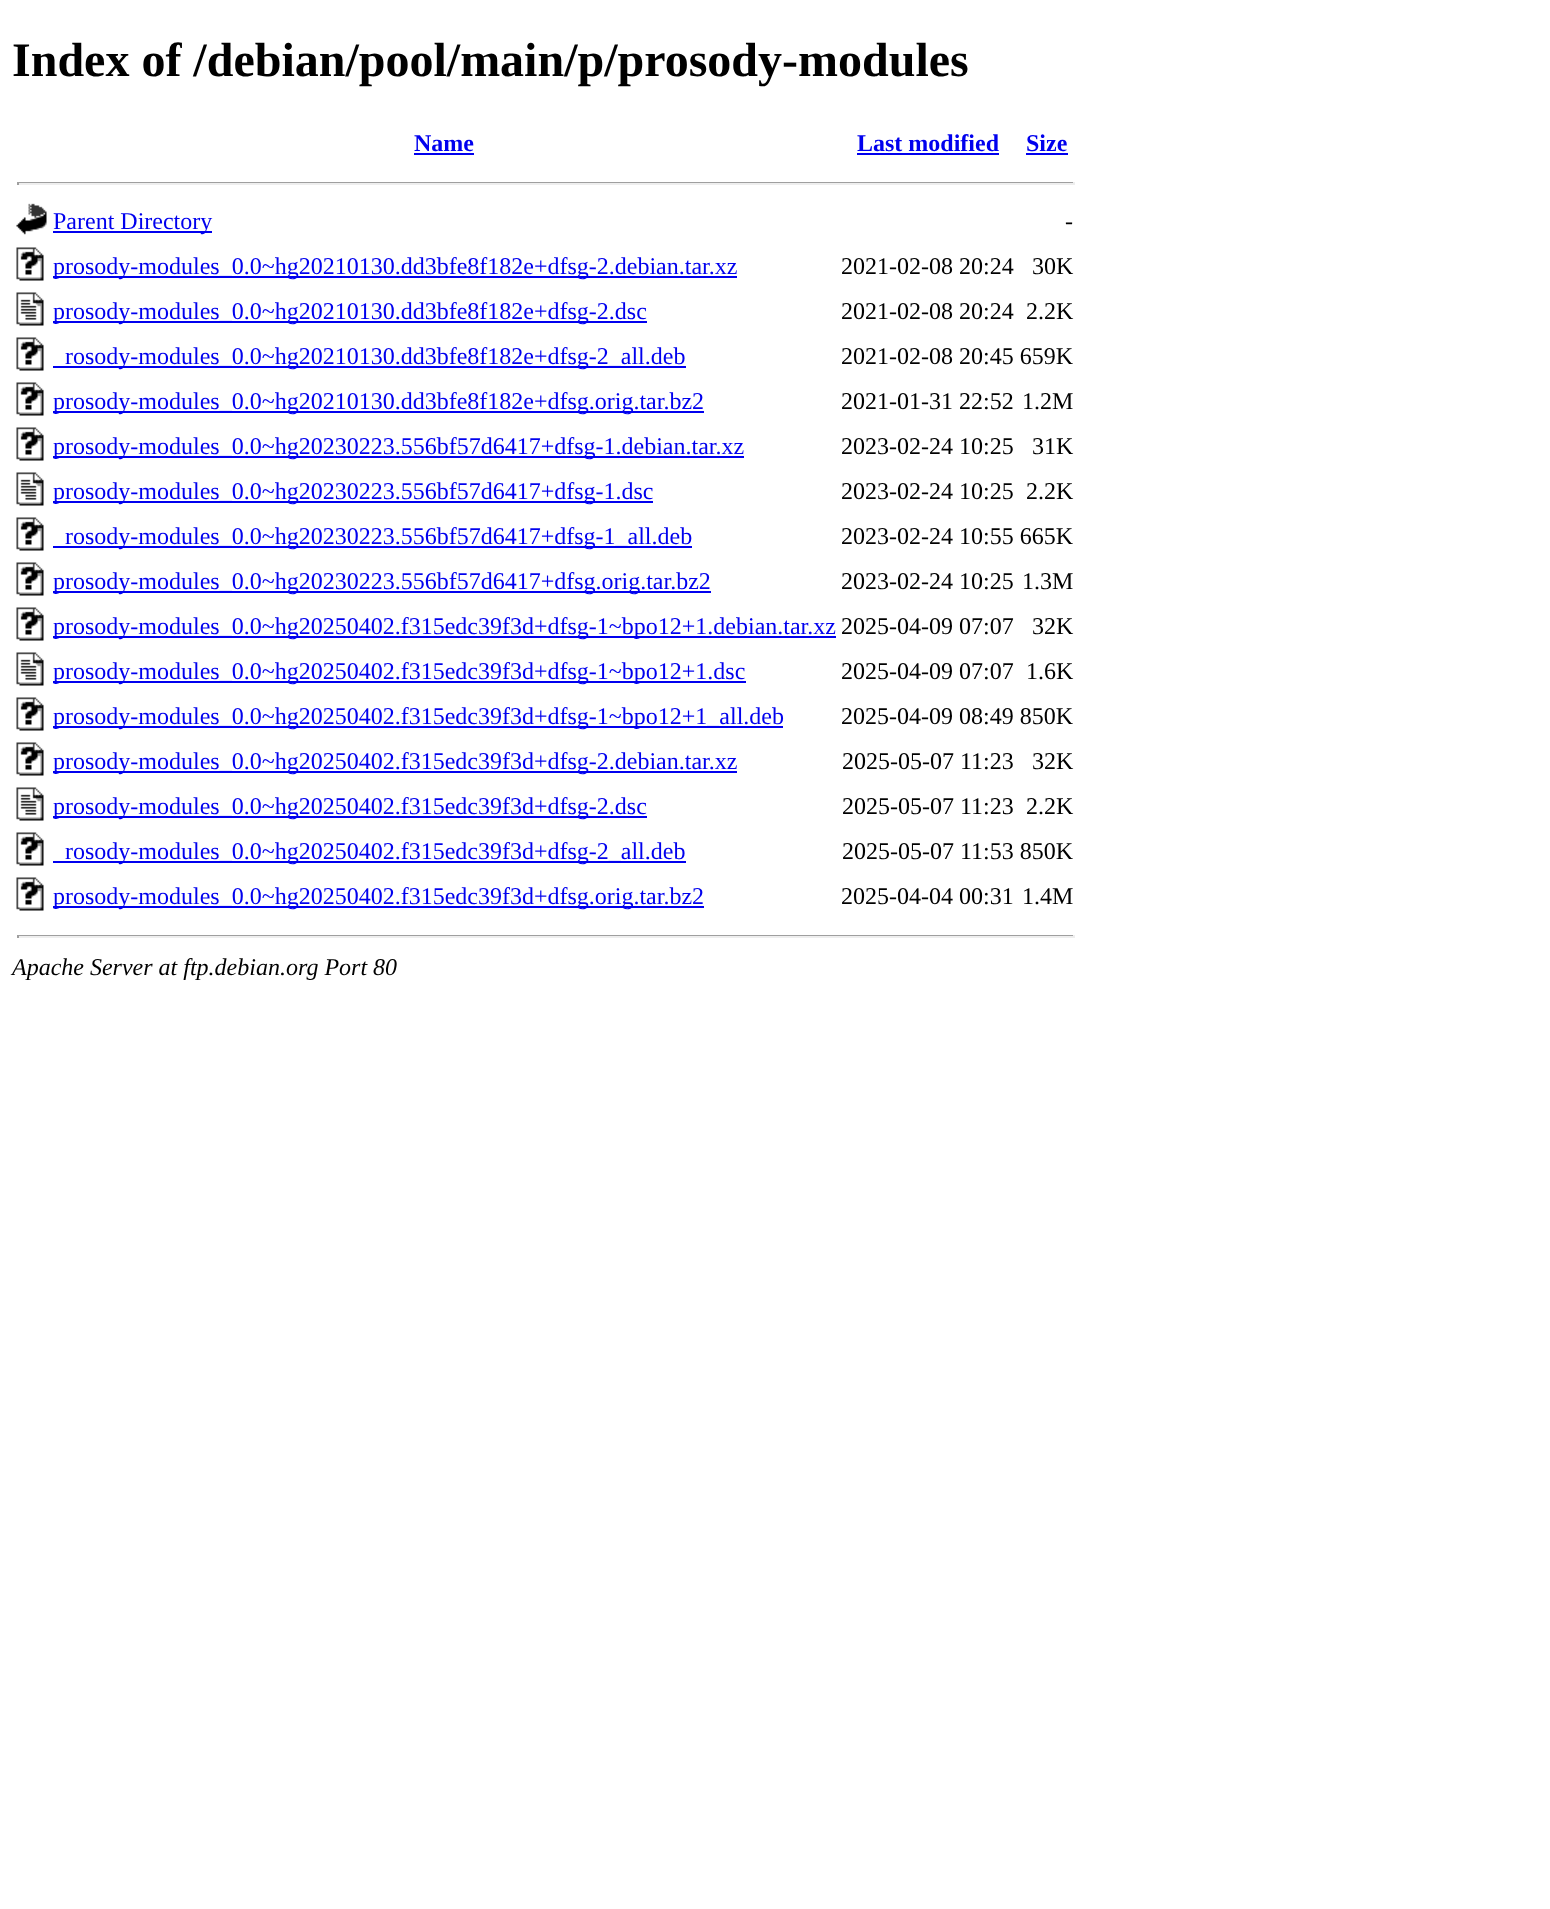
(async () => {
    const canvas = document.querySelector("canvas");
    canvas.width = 1550;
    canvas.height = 1909;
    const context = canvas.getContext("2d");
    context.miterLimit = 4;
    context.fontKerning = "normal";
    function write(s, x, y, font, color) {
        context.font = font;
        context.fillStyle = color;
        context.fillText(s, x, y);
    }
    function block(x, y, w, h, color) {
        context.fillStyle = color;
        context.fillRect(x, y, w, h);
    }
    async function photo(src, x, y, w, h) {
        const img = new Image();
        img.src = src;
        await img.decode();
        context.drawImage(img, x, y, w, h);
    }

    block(0, 0, 1550, 1909, "rgb(255, 255, 255)");
    write("Index of /debian/pool/main/p/prosody-modules", 12, 76, "bold 48px Liberation Serif", "rgb(0, 0, 0)");
    write("Name", 414, 151, "bold 24px Liberation Serif", "rgb(0, 0, 238)");
    block(414, 153, 60, 2, "rgb(0, 0, 238)");
    write("Last modified", 857, 151, "bold 24px Liberation Serif", "rgb(0, 0, 238)");
    block(857, 153, 142, 2, "rgb(0, 0, 238)");
    write("Size", 1026, 151, "bold 24px Liberation Serif", "rgb(0, 0, 238)");
    block(1026, 153, 42, 2, "rgb(0, 0, 238)");
    block(17, 182, 1057, 1, "rgb(159, 159, 159)");
    block(1073, 182, 2, 3, "rgb(238, 238, 238)");
    block(17, 183, 1057, 2, "rgb(238, 238, 238)");
    block(17, 182, 2, 3, "rgb(159, 159, 159)");
    await photo("media/1.png", 16, 203, 31, 32);
    block(53, 231, 159, 2, "rgb(0, 0, 238)");
    write("Parent Directory", 53, 229, "24px Liberation Serif", "rgb(0, 0, 238)");
    write("-", 1065, 229, "24px Liberation Serif", "rgb(0, 0, 0)");
    await photo("media/2.png", 16, 247, 28, 34);
    block(53, 276, 684, 2, "rgb(0, 0, 238)");
    write("prosody-modules_0.0~hg20210130.dd3bfe8f182e+dfsg-2.debian.tar.xz", 53, 274, "24px Liberation Serif", "rgb(0, 0, 238)");
    write("2021-02-08 20:24", 841, 274, "24px Liberation Serif", "rgb(0, 0, 0)");
    write("30K", 1032, 274, "24px Liberation Serif", "rgb(0, 0, 0)");
    await photo("media/3.png", 16, 292, 28, 34);
    block(53, 321, 594, 2, "rgb(0, 0, 238)");
    write("prosody-modules_0.0~hg20210130.dd3bfe8f182e+dfsg-2.dsc", 53, 319, "24px Liberation Serif", "rgb(0, 0, 238)");
    write("2021-02-08 20:24", 841, 319, "24px Liberation Serif", "rgb(0, 0, 0)");
    write("2.2K", 1026, 319, "24px Liberation Serif", "rgb(0, 0, 0)");
    await photo("media/2.png", 16, 337, 28, 34);
    block(53, 366, 633, 2, "rgb(0, 0, 238)");
    write("rosody-modules_0.0~hg20210130.dd3bfe8f182e+dfsg-2_all.deb", 65, 364, "24px Liberation Serif", "rgb(0, 0, 238)");
    write("2021-02-08 20:45 659K", 841, 364, "24px Liberation Serif", "rgb(0, 0, 0)");
    await photo("media/2.png", 16, 382, 28, 34);
    block(53, 411, 651, 2, "rgb(0, 0, 238)");
    write("prosody-modules_0.0~hg20210130.dd3bfe8f182e+dfsg.orig.tar.bz2", 53, 409, "24px Liberation Serif", "rgb(0, 0, 238)");
    write("2021-01-31 22:52", 841, 409, "24px Liberation Serif", "rgb(0, 0, 0)");
    write("1.2M", 1022, 409, "24px Liberation Serif", "rgb(0, 0, 0)");
    await photo("media/2.png", 16, 427, 28, 34);
    block(53, 456, 691, 2, "rgb(0, 0, 238)");
    write("prosody-modules_0.0~hg20230223.556bf57d6417+dfsg-1.debian.tar.xz", 53, 454, "24px Liberation Serif", "rgb(0, 0, 238)");
    write("2023-02-24 10:25", 841, 454, "24px Liberation Serif", "rgb(0, 0, 0)");
    write("31K", 1032, 454, "24px Liberation Serif", "rgb(0, 0, 0)");
    await photo("media/3.png", 16, 472, 28, 34);
    block(53, 501, 600, 2, "rgb(0, 0, 238)");
    write("prosody-modules_0.0~hg20230223.556bf57d6417+dfsg-1.dsc", 53, 499, "24px Liberation Serif", "rgb(0, 0, 238)");
    write("2023-02-24 10:25", 841, 499, "24px Liberation Serif", "rgb(0, 0, 0)");
    write("2.2K", 1026, 499, "24px Liberation Serif", "rgb(0, 0, 0)");
    await photo("media/2.png", 16, 517, 28, 34);
    block(53, 546, 639, 2, "rgb(0, 0, 238)");
    write("rosody-modules_0.0~hg20230223.556bf57d6417+dfsg-1_all.deb", 65, 544, "24px Liberation Serif", "rgb(0, 0, 238)");
    write("2023-02-24 10:55 665K", 841, 544, "24px Liberation Serif", "rgb(0, 0, 0)");
    await photo("media/2.png", 16, 562, 28, 34);
    block(53, 591, 658, 2, "rgb(0, 0, 238)");
    write("prosody-modules_0.0~hg20230223.556bf57d6417+dfsg.orig.tar.bz2", 53, 589, "24px Liberation Serif", "rgb(0, 0, 238)");
    write("2023-02-24 10:25", 841, 589, "24px Liberation Serif", "rgb(0, 0, 0)");
    write("1.3M", 1022, 589, "24px Liberation Serif", "rgb(0, 0, 0)");
    await photo("media/2.png", 16, 607, 28, 34);
    block(53, 636, 783, 2, "rgb(0, 0, 238)");
    write("prosody-modules_0.0~hg20250402.f315edc39f3d+dfsg-1~bpo12+1.debian.tar.xz", 53, 634, "24px Liberation Serif", "rgb(0, 0, 238)");
    write("2025-04-09 07:07", 841, 634, "24px Liberation Serif", "rgb(0, 0, 0)");
    write("32K", 1032, 634, "24px Liberation Serif", "rgb(0, 0, 0)");
    await photo("media/3.png", 16, 652, 28, 34);
    block(53, 681, 693, 2, "rgb(0, 0, 238)");
    write("prosody-modules_0.0~hg20250402.f315edc39f3d+dfsg-1~bpo12+1.dsc", 53, 679, "24px Liberation Serif", "rgb(0, 0, 238)");
    write("2025-04-09 07:07", 841, 679, "24px Liberation Serif", "rgb(0, 0, 0)");
    write("1.6K", 1026, 679, "24px Liberation Serif", "rgb(0, 0, 0)");
    await photo("media/2.png", 16, 697, 28, 34);
    block(53, 726, 730, 2, "rgb(0, 0, 238)");
    write("prosody-modules_0.0~hg20250402.f315edc39f3d+dfsg-1~bpo12+1_all.deb", 53, 724, "24px Liberation Serif", "rgb(0, 0, 238)");
    write("2025-04-09 08:49 850K", 841, 724, "24px Liberation Serif", "rgb(0, 0, 0)");
    await photo("media/2.png", 16, 742, 28, 34);
    block(53, 771, 684, 2, "rgb(0, 0, 238)");
    write("prosody-modules_0.0~hg20250402.f315edc39f3d+dfsg-2.debian.tar.xz", 53, 769, "24px Liberation Serif", "rgb(0, 0, 238)");
    write("2025-05-07 11:23", 842, 769, "24px Liberation Serif", "rgb(0, 0, 0)");
    write("32K", 1032, 769, "24px Liberation Serif", "rgb(0, 0, 0)");
    await photo("media/3.png", 16, 787, 28, 34);
    block(53, 816, 594, 2, "rgb(0, 0, 238)");
    write("prosody-modules_0.0~hg20250402.f315edc39f3d+dfsg-2.dsc", 53, 814, "24px Liberation Serif", "rgb(0, 0, 238)");
    write("2025-05-07 11:23", 842, 814, "24px Liberation Serif", "rgb(0, 0, 0)");
    write("2.2K", 1026, 814, "24px Liberation Serif", "rgb(0, 0, 0)");
    await photo("media/2.png", 16, 832, 28, 34);
    block(53, 861, 633, 2, "rgb(0, 0, 238)");
    write("rosody-modules_0.0~hg20250402.f315edc39f3d+dfsg-2_all.deb", 65, 859, "24px Liberation Serif", "rgb(0, 0, 238)");
    write("2025-05-07 11:53 850K", 842, 859, "24px Liberation Serif", "rgb(0, 0, 0)");
    await photo("media/2.png", 16, 877, 28, 34);
    block(53, 906, 651, 2, "rgb(0, 0, 238)");
    write("prosody-modules_0.0~hg20250402.f315edc39f3d+dfsg.orig.tar.bz2", 53, 904, "24px Liberation Serif", "rgb(0, 0, 238)");
    write("2025-04-04 00:31", 841, 904, "24px Liberation Serif", "rgb(0, 0, 0)");
    write("1.4M", 1022, 904, "24px Liberation Serif", "rgb(0, 0, 0)");
    block(17, 935, 1057, 1, "rgb(159, 159, 159)");
    block(1073, 935, 2, 3, "rgb(238, 238, 238)");
    block(17, 936, 1057, 2, "rgb(238, 238, 238)");
    block(17, 935, 2, 3, "rgb(159, 159, 159)");
    write("Apache Server at ftp.debian.org Port 80", 12, 975, "italic 24px Liberation Serif", "rgb(0, 0, 0)");
})();
